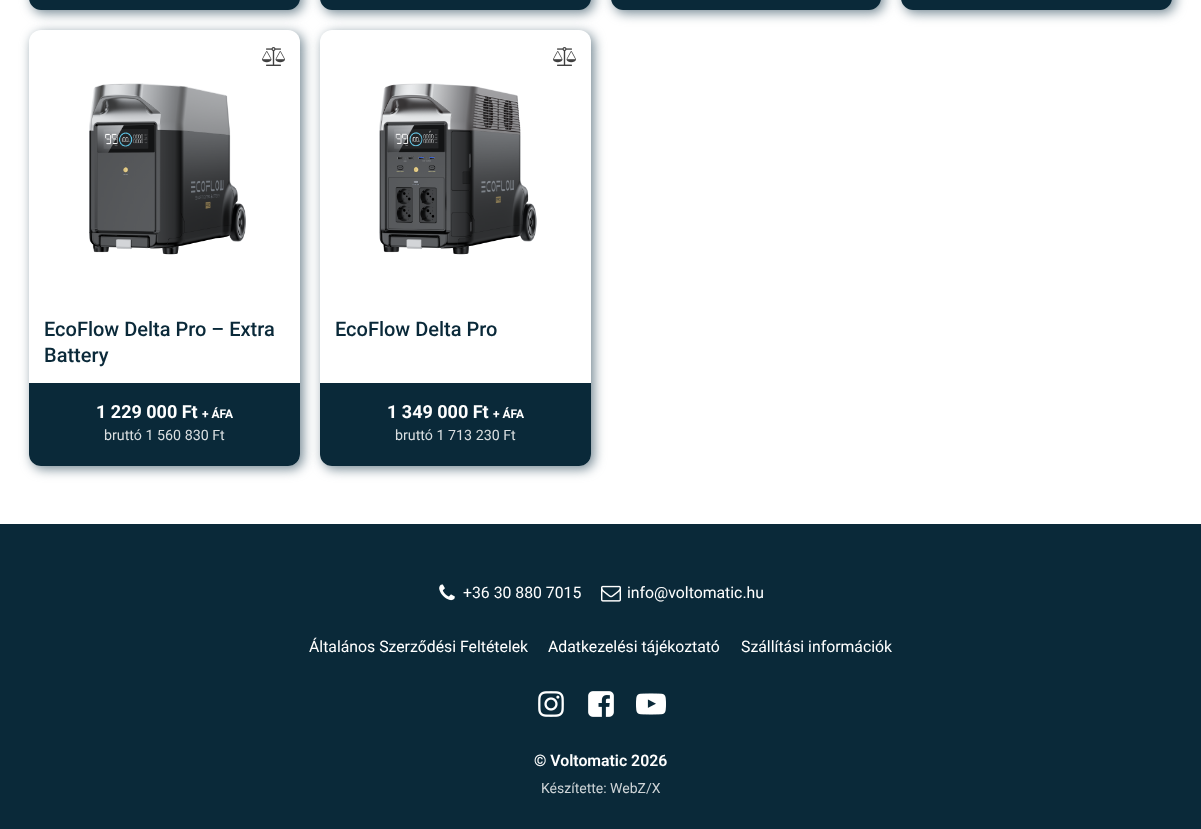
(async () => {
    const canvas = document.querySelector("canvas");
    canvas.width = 1201;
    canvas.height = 829;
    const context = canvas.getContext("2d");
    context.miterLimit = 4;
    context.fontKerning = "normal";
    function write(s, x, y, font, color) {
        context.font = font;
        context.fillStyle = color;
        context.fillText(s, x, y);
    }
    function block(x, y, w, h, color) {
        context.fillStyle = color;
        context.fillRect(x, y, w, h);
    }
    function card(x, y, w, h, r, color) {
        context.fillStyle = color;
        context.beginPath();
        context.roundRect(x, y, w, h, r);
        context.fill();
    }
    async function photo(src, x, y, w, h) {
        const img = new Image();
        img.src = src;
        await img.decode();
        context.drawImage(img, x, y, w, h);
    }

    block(0, 0, 1201, 829, "rgb(255, 255, 255)");
    context.fillStyle = "rgb(115, 135, 146)";
    context.filter = "blur(6px)";
    context.beginPath();
    context.roundRect(32, -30, 271, 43, 12);
    context.fill();
    context.filter = "none";
    context.fillStyle = "rgb(10, 41, 57)";
    context.beginPath();
    context.moveTo(29, -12);
    context.lineTo(300, -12);
    context.lineTo(300, -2);
    context.bezierCurveTo(300, 4.5, 294.5, 10, 288, 10);
    context.lineTo(41, 10);
    context.bezierCurveTo(34.5, 10, 29, 4.5, 29, -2);
    context.closePath();
    context.fill();
    context.fillStyle = "rgb(115, 135, 146)";
    context.filter = "blur(6px)";
    context.beginPath();
    context.roundRect(323, -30, 271, 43, 12);
    context.fill();
    context.filter = "none";
    context.fillStyle = "rgb(10, 41, 57)";
    context.beginPath();
    context.moveTo(320, -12);
    context.lineTo(591, -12);
    context.lineTo(591, -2);
    context.bezierCurveTo(591, 4.5, 585.5, 10, 579, 10);
    context.lineTo(332, 10);
    context.bezierCurveTo(325.5, 10, 320, 4.5, 320, -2);
    context.closePath();
    context.fill();
    context.fillStyle = "rgb(115, 135, 146)";
    context.filter = "blur(6px)";
    context.beginPath();
    context.roundRect(614, -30, 270, 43, 12);
    context.fill();
    context.filter = "none";
    context.fillStyle = "rgb(10, 41, 57)";
    context.beginPath();
    context.moveTo(611, -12);
    context.lineTo(881, -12);
    context.lineTo(881, -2);
    context.bezierCurveTo(881, 4.5, 875.5, 10, 869, 10);
    context.lineTo(623, 10);
    context.bezierCurveTo(616.5, 10, 611, 4.5, 611, -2);
    context.closePath();
    context.fill();
    context.fillStyle = "rgb(115, 135, 146)";
    context.filter = "blur(6px)";
    context.beginPath();
    context.roundRect(904, -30, 271, 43, 12);
    context.fill();
    context.filter = "none";
    context.fillStyle = "rgb(10, 41, 57)";
    context.beginPath();
    context.moveTo(901, -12);
    context.lineTo(1172, -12);
    context.lineTo(1172, -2);
    context.bezierCurveTo(1172, 4.5, 1166.5, 10, 1160, 10);
    context.lineTo(913, 10);
    context.bezierCurveTo(906.5, 10, 901, 4.5, 901, -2);
    context.closePath();
    context.fill();
    context.fillStyle = "rgb(115, 135, 146)";
    context.filter = "blur(6px)";
    context.beginPath();
    context.roundRect(32, 33, 271, 436, 12);
    context.fill();
    context.filter = "none";
    card(29, 30, 271, 436, 12, "rgb(255, 255, 255)");
    await photo("media/1.png", 262, 47, 23, 19);
    await photo("media/2.png", 89, 83, 157, 172);
    write("EcoFlow Delta Pro – Extra", 44, 336, "500 20px Roboto", "rgb(10, 41, 57)");
    write("Battery", 44, 362, "500 20px Roboto", "rgb(10, 41, 57)");
    context.beginPath();
    context.roundRect(29, 383, 271, 83, [0, 0, 12, 12]);
    context.fill();
    write("1 229 000 Ft", 96, 418, "bold 18px Roboto", "rgb(255, 255, 255)");
    write("+ ÁFA", 202, 418, "bold 12px Roboto", "rgb(255, 255, 255)");
    write("bruttó 1 560 830 Ft", 104, 440, "14.25px Roboto", "rgb(218, 223, 225)");
    context.fillStyle = "rgb(115, 135, 146)";
    context.filter = "blur(6px)";
    context.beginPath();
    context.roundRect(323, 33, 271, 436, 12);
    context.fill();
    context.filter = "none";
    card(320, 30, 271, 436, 12, "rgb(255, 255, 255)");
    await photo("media/1.png", 553, 47, 23, 19);
    await photo("media/3.png", 379, 83, 158, 172);
    write("EcoFlow Delta Pro", 335, 336, "500 20px Roboto", "rgb(10, 41, 57)");
    context.beginPath();
    context.roundRect(320, 383, 271, 83, [0, 0, 12, 12]);
    context.fill();
    write("1 349 000 Ft", 387, 418, "bold 18px Roboto", "rgb(255, 255, 255)");
    write("+ ÁFA", 493, 418, "bold 12px Roboto", "rgb(255, 255, 255)");
    write("bruttó 1 713 230 Ft", 395, 440, "14.25px Roboto", "rgb(218, 223, 225)");
    block(0, 524, 1201, 305, "rgb(10, 41, 57)");
    await photo("media/4.png", 439, 584, 16, 17);
    write("+36 30 880 7015", 463, 598, "15.8px Roboto", "rgb(255, 255, 255)");
    await photo("media/5.png", 601, 585, 20, 17);
    write("info@voltomatic.hu", 627, 598, "15.8px Roboto", "rgb(255, 255, 255)");
    write("Általános Szerződési Feltételek", 309, 652, "15.8px Roboto", "rgb(255, 255, 255)");
    write("Adatkezelési tájékoztató", 548, 652, "15.8px Roboto", "rgb(255, 255, 255)");
    write("Szállítási információk", 741, 652, "15.8px Roboto", "rgb(255, 255, 255)");
    await photo("media/6.png", 538, 691, 26, 26);
    await photo("media/7.png", 588, 691, 26, 26);
    await photo("media/8.png", 636, 693, 30, 22);
    write("© Voltomatic 2026", 534, 766, "600 15.8px Roboto", "rgb(255, 255, 255)");
    write("Készítette: WebZ/X", 541, 793, "14px Roboto", "rgb(206, 212, 215)");
})();
